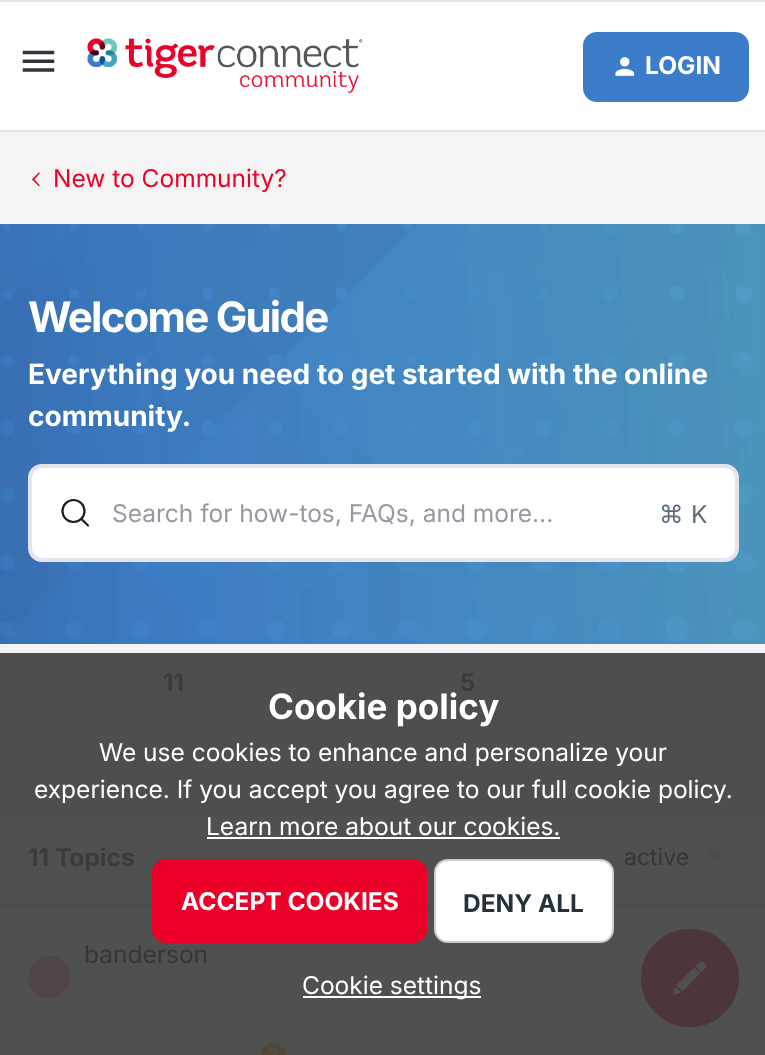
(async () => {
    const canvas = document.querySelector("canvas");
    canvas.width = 765;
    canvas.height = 1055;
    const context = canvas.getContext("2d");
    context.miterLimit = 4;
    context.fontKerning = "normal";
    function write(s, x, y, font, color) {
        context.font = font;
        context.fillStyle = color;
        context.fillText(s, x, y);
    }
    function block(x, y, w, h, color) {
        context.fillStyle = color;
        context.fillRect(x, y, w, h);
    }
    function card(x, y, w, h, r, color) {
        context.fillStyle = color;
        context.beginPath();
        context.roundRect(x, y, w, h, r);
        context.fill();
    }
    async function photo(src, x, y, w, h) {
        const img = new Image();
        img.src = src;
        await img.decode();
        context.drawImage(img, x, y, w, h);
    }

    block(0, 0, 765, 1055, "rgb(244, 244, 244)");
    block(0, 653, 765, 159, "rgb(78, 78, 78)");
    block(0, 2, 765, 128, "rgb(255, 255, 255)");
    block(0, 0, 765, 2, "rgb(227, 228, 235)");
    block(0, 130, 765, 2, "rgb(227, 228, 235)");
    await photo("media/1.png", 22, 50, 33, 22);
    await photo("media/2.png", 87, 38, 276, 55);
    context.fillStyle = "rgb(61, 124, 201)";
    context.beginPath();
    context.roundRect(584, 33, 164, 68, 13);
    context.fill();
    context.strokeStyle = "rgb(61, 124, 201)";
    context.lineWidth = 2;
    context.stroke();
    await photo("media/3.png", 615, 57, 20, 19);
    write("LOGIN", 645, 74, "bold 24.5px Inter", "rgb(255, 255, 255)");
    await photo("media/4.png", 32, 172, 8, 15);
    write("New to Community?", 53, 187, "24.5px Inter", "rgb(234, 0, 41)");
    await photo("media/5.png", 0, 224, 765, 420);
    context.letterSpacing = "-1.75px";
    write("Welcome Guide", 28, 332, "bold 42px Inter", "rgb(255, 255, 255)");
    context.letterSpacing = "0px";
    write("Everything you need to get started with the online", 28, 384, "bold 28px Inter", "rgb(255, 255, 255)");
    write("community.", 28, 426, "bold 28px Inter", "rgb(255, 255, 255)");
    context.beginPath();
    context.roundRect(30, 466, 707, 94, 12);
    context.fill();
    context.strokeStyle = "rgb(227, 228, 236)";
    context.lineWidth = 4;
    context.stroke();
    context.beginPath();
    context.arc(73.5, 511, 11, 0, Math.PI * 2);
    context.strokeStyle = "rgb(24, 31, 38)";
    context.lineWidth = 2.2;
    context.stroke();
    context.beginPath();
    context.moveTo(81.5, 519);
    context.lineTo(88, 525.5);
    context.lineCap = "round";
    context.stroke();
    write("Search for how-tos, FAQs, and more...", 112, 522, "24.5px Inter", "rgb(149, 153, 162)");
    write("⌘", 659, 523, "24.5px DejaVu Sans", "rgb(95, 108, 122)");
    write("K", 691, 523, "24.5px Inter", "rgb(95, 108, 122)");
    write("11", 163, 691, "bold 24.5px Inter", "rgb(59, 59, 60)");
    write("5", 460, 691, "bold 24.5px Inter", "rgb(59, 59, 60)");
    write("Cookie policy", 268, 719, "bold 35px Inter", "rgb(255, 255, 255)");
    write("We use cookies to enhance and personalize your", 99, 761, "24.5px Inter", "rgb(255, 255, 255)");
    write("experience. If you accept you agree to our full cookie policy.", 34, 798, "24.5px Inter", "rgb(255, 255, 255)");
    block(0, 814, 765, 241, "rgb(80, 80, 80)");
    write("Learn more about our cookies.", 206, 835, "24.5px Inter", "rgb(255, 255, 255)");
    block(207, 837, 353, 2, "rgb(255, 255, 255)");
    block(0, 905, 765, 2, "rgb(76, 76, 76)");
    context.fillStyle = "rgb(234, 0, 41)";
    context.beginPath();
    context.roundRect(153, 860, 273, 82, 13);
    context.fill();
    context.strokeStyle = "rgb(234, 0, 41)";
    context.lineWidth = 2;
    context.stroke();
    write("ACCEPT COOKIES", 181, 910, "bold 24.5px Inter", "rgb(255, 255, 255)");
    card(434, 859, 180, 84, 14, "rgb(255, 255, 255)");
    context.beginPath();
    context.roundRect(435, 860, 178, 82, 13);
    context.strokeStyle = "rgba(0, 0, 0, 0.2)";
    context.stroke();
    write("DENY ALL", 463, 912, "bold 24.5px Inter", "rgb(37, 49, 59)");
    block(303, 996, 178, 2, "rgb(255, 255, 255)");
    write("Cookie settings", 302, 994, "24.5px Inter", "rgb(255, 255, 255)");
    block(0, 812, 765, 2, "rgb(76, 76, 76)");
    write("11 Topics", 28, 866, "bold 24.5px Inter", "rgb(59, 59, 60)");
    write("active", 624, 865, "23px Inter", "rgb(54, 54, 54)");
    context.fillStyle = "rgb(76, 76, 76)";
    context.beginPath();
    context.moveTo(707, 850.5);
    context.lineTo(724.5, 850.5);
    context.lineTo(716, 859);
    context.closePath();
    context.fill();
    context.fillStyle = "rgb(80, 69, 73)";
    context.beginPath();
    context.arc(49, 977, 21, 0, Math.PI * 2);
    context.fill();
    write("banderson", 84, 963, "24.5px Inter", "rgb(54, 54, 54)");
    context.beginPath();
    context.moveTo(191, 1019.5);
    context.lineTo(373, 1019.5);
    context.strokeStyle = "rgb(76, 76, 76)";
    context.lineWidth = 1.8;
    context.lineCap = "butt";
    context.setLineDash([5.25, 3.59]);
    context.stroke();
    await photo("media/6.png", 260, 1043, 26, 12);
    context.fillStyle = "rgb(77, 54, 58)";
    context.beginPath();
    context.arc(690, 978, 48, 0, Math.PI * 2);
    context.fill();
    context.strokeStyle = "rgb(77, 54, 58)";
    context.lineWidth = 2;
    context.setLineDash([]);
    context.stroke();
    await photo("media/7.png", 672, 961, 35, 34);
})();
